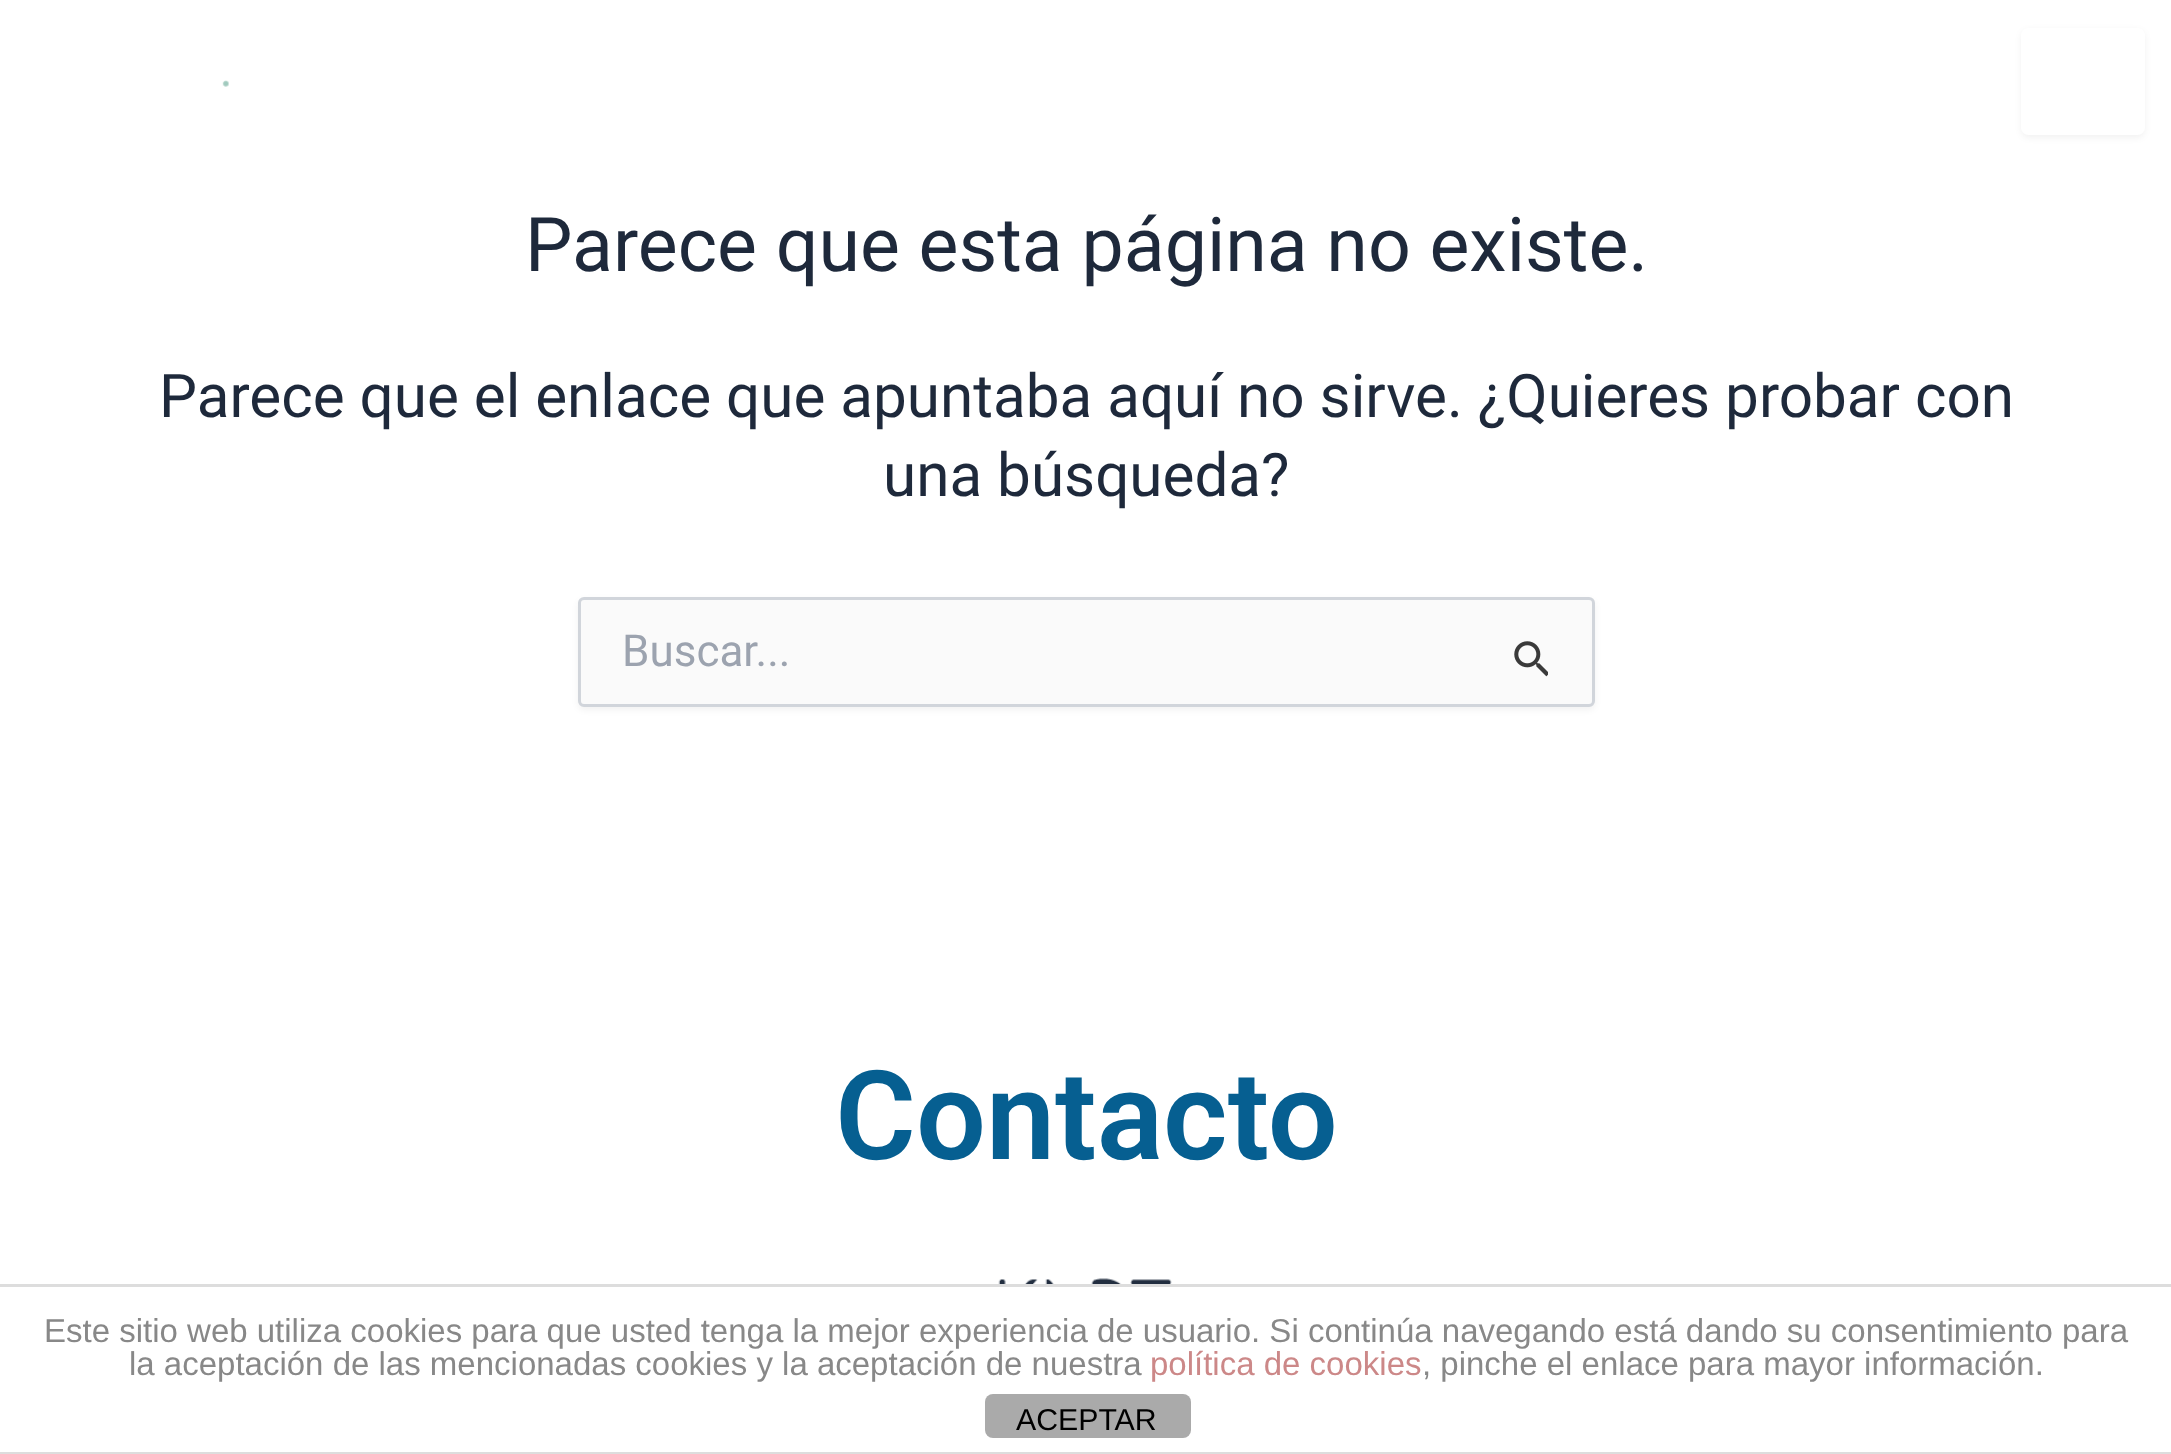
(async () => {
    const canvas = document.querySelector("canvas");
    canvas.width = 2171;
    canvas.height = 1454;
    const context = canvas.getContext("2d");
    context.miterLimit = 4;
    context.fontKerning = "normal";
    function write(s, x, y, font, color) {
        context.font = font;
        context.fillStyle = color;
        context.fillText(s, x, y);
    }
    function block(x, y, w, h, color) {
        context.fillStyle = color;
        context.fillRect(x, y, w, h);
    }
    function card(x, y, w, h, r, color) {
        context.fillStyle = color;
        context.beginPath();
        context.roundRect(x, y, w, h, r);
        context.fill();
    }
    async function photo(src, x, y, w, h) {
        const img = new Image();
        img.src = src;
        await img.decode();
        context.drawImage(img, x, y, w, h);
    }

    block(0, 0, 2171, 1454, "rgb(255, 255, 255)");
    await photo("media/1.png", 222, 80, 7, 7);
    context.save();
    context.beginPath();
    context.moveTo(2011, 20);
    context.lineTo(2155, 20);
    context.lineTo(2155, 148);
    context.lineTo(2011, 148);
    context.closePath();
    context.moveTo(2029, 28);
    context.lineTo(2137, 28);
    context.bezierCurveTo(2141.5, 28, 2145, 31.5, 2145, 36);
    context.lineTo(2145, 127);
    context.bezierCurveTo(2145, 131.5, 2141.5, 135, 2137, 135);
    context.lineTo(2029, 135);
    context.bezierCurveTo(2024.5, 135, 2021, 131.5, 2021, 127);
    context.lineTo(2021, 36);
    context.bezierCurveTo(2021, 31.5, 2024.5, 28, 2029, 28);
    context.closePath();
    context.clip("evenodd");
    context.fillStyle = "rgba(0, 0, 0, 0.05)";
    context.filter = "blur(3px)";
    context.beginPath();
    context.roundRect(2021, 30, 124, 108, 8);
    context.fill();
    context.filter = "none";
    context.restore();
    write("Parece que esta página no existe.", 525, 271, "75.25px Roboto", "rgb(30, 41, 59)");
    write("Parece que el enlace que apuntaba aquí no sirve. ¿Quieres probar con", 159, 417, "60.2px Roboto", "rgb(30, 41, 59)");
    write("una búsqueda?", 883, 496, "60.2px Roboto", "rgb(30, 41, 59)");
    context.fillStyle = "rgba(0, 0, 0, 0.05)";
    context.filter = "blur(3px)";
    context.beginPath();
    context.roundRect(578, 600, 1017, 110, 6);
    context.fill();
    context.filter = "none";
    context.fillStyle = "rgb(250, 250, 250)";
    context.beginPath();
    context.roundRect(579.5, 598.5, 1014, 107, 4.5);
    context.fill();
    context.strokeStyle = "rgb(209, 213, 219)";
    context.lineWidth = 3;
    context.stroke();
    write("Buscar...", 622, 666, "44px Roboto", "rgb(156, 163, 175)");
    await photo("media/2.png", 1514, 641, 34, 36);
    write("Contacto", 835, 1159, "600 123.75px Roboto", "rgb(6, 95, 145)");
    await photo("media/3.png", 998, 1278, 174, 6);
    block(0, 1284, 2171, 3, "rgb(221, 221, 221)");
    block(0, 1452, 2171, 2, "rgb(221, 221, 221)");
    write("Este sitio web utiliza cookies para que usted tenga la mejor experiencia de usuario. Si continúa navegando está dando su consentimiento para", 44, 1342, "33px Liberation Sans", "rgb(136, 136, 136)");
    write("la aceptación de las mencionadas cookies y la aceptación de nuestra", 129, 1375, "33px Liberation Sans", "rgb(136, 136, 136)");
    write("política de cookies", 1150, 1375, "33px Liberation Sans", "rgb(204, 136, 136)");
    write(", pinche el enlace para mayor información.", 1422, 1375, "33px Liberation Sans", "rgb(136, 136, 136)");
    card(985, 1394, 206, 44, 8, "rgb(170, 170, 170)");
    write("ACEPTAR", 1016, 1430, "30.25px Liberation Sans", "rgb(0, 0, 0)");
})();
